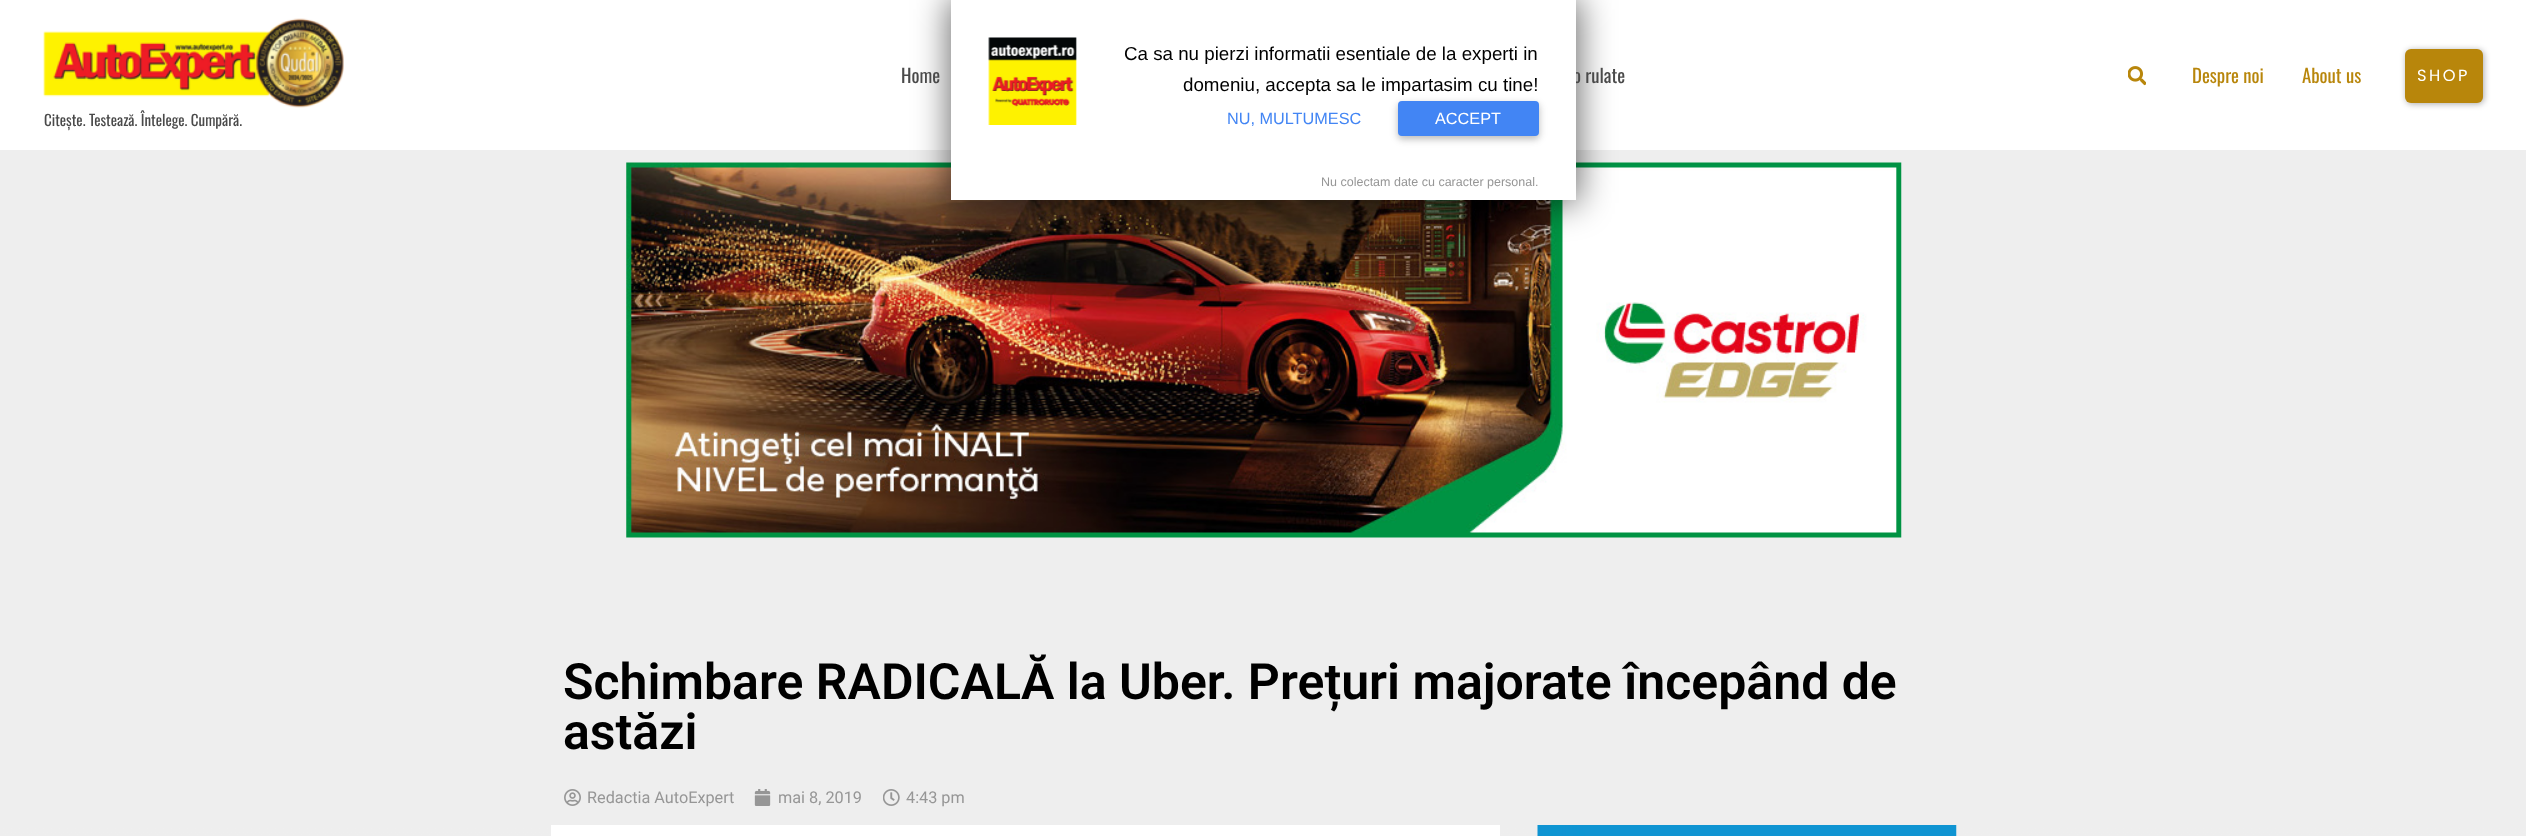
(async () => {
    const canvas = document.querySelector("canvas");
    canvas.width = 2526;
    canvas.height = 836;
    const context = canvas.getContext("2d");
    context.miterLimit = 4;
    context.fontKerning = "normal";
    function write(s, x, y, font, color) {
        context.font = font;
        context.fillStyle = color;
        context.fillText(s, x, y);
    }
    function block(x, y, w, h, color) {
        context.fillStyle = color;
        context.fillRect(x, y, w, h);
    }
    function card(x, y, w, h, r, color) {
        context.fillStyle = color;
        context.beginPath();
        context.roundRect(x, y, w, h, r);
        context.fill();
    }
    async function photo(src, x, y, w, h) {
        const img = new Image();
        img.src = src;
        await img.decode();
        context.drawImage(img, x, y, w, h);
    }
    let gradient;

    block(0, 0, 2526, 836, "rgb(255, 255, 255)");
    block(0, 150, 2526, 675, "rgb(238, 238, 238)");
    await photo("media/4.png", 626, 162, 1276, 376);
    context.fillStyle = "rgba(0, 0, 0, 0.58)";
    context.filter = "blur(17px)";
    context.beginPath();
    context.rect(949, -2, 630, 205);
    context.fill();
    context.filter = "none";
    write("o rulate", 1573, 83, "18.75px Oswald", "rgb(74, 74, 74)");
    block(951, 0, 625, 200, "rgb(255, 255, 255)");
    await photo("media/1.png", 988, 37, 89, 88);
    write("Ca sa nu pierzi informatii esentiale de la experti in", 1124, 60, "18.75px Liberation Sans", "rgb(0, 0, 0)");
    write("domeniu, accepta sa le impartasim cu tine!", 1183, 91, "18.75px Liberation Sans", "rgb(0, 0, 0)");
    write("NU, MULTUMESC", 1227, 124, "16.25px Liberation Sans", "rgb(66, 133, 244)");
    context.fillStyle = "rgba(0, 0, 0, 0.12)";
    context.filter = "blur(4px)";
    context.beginPath();
    context.roundRect(1398, 104, 141, 35, 4);
    context.fill();
    context.filter = "none";
    context.fillStyle = "rgba(0, 0, 0, 0.16)";
    context.filter = "blur(3px)";
    context.beginPath();
    context.roundRect(1398, 104, 141, 35, 4);
    context.fill();
    context.filter = "none";
    card(1398, 101, 141, 35, 4, "rgb(66, 133, 244)");
    write("ACCEPT", 1435, 124, "16.25px Liberation Sans", "rgb(255, 255, 255)");
    write("Nu colectam date cu caracter personal.", 1321, 186, "12.5px Liberation Sans", "rgb(150, 150, 150)");
    write("Home", 901, 83, "18.75px Oswald", "rgb(74, 74, 74)");
    await photo("media/2.png", 2128, 66, 18, 20);
    write("Despre noi", 2192, 83, "18.75px Oswald", "rgb(184, 134, 11)");
    write("About us", 2302, 83, "18.75px Oswald", "rgb(184, 134, 11)");
    context.fillStyle = "rgba(0, 0, 0, 0.33)";
    context.filter = "blur(3px)";
    context.beginPath();
    context.roundRect(2406, 50, 78, 54, 6);
    context.fill();
    context.filter = "none";
    card(2405, 49, 78, 54, 6, "rgb(184, 134, 11)");
    context.letterSpacing = "2.5px";
    write("SHOP", 2417, 81, "16.25px Poppins", "rgb(255, 255, 255)");
    await photo("media/3.png", 43, 18, 301, 90);
    context.letterSpacing = "0px";
    write("Citește. Testează. Întelege. Cumpără.", 44, 126, "15px Oswald", "rgb(74, 74, 74)");
    write("Schimbare RADICALĂ la Uber. Prețuri majorate începând de", 563, 699, "600 50px Roboto", "rgb(0, 0, 0)");
    write("astăzi", 563, 749, "600 50px Roboto", "rgb(0, 0, 0)");
    await photo("media/5.png", 564, 789, 17, 17);
    write("Redactia AutoExpert", 587, 803, "16.25px Roboto", "rgb(150, 150, 150)");
    await photo("media/6.png", 754, 789, 17, 17);
    write("mai 8, 2019", 778, 803, "16.25px Roboto", "rgb(150, 150, 150)");
    await photo("media/7.png", 883, 789, 17, 17);
    write("4:43 pm", 906, 803, "16.25px Roboto", "rgb(150, 150, 150)");
    gradient = context.createLinearGradient(1263, 825, 1263, 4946);
    gradient.addColorStop(0, "rgb(238, 238, 238)");
    gradient.addColorStop(0.5, "rgb(255, 255, 255)");
    context.fillStyle = gradient;
    context.fillRect(0, 825, 2526, 11);
    block(551, 825, 949, 11, "rgb(255, 255, 255)");
    await photo("media/8.png", 1537, 825, 420, 11);
})();
